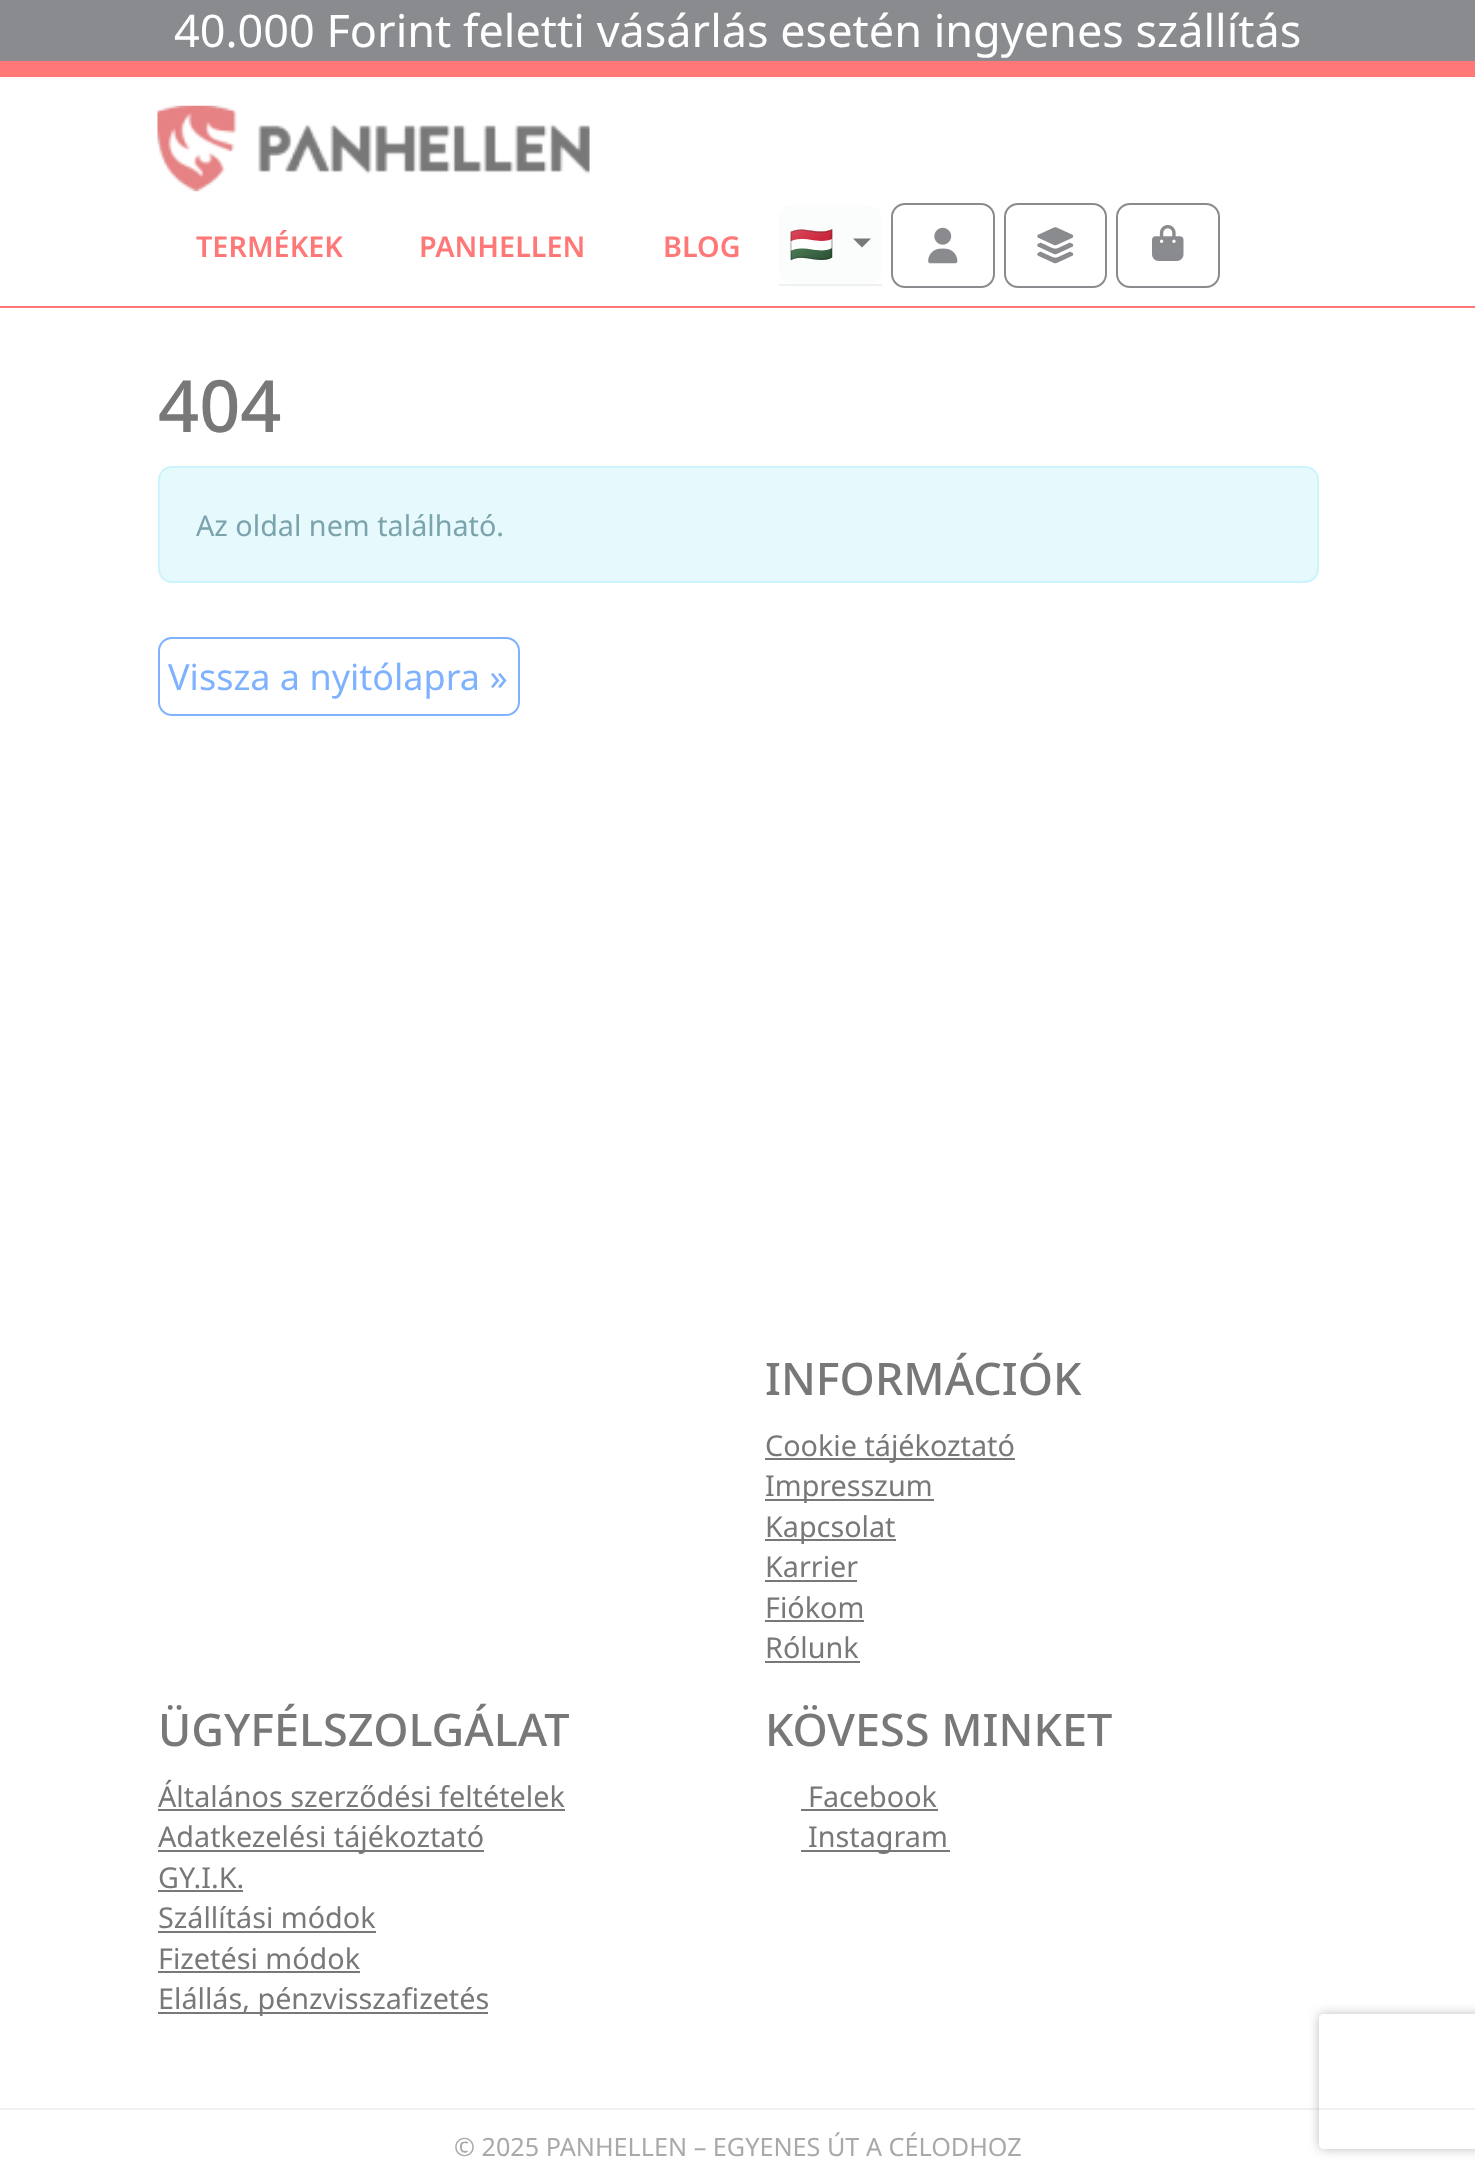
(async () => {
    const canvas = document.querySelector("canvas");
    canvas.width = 1475;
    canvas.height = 2179;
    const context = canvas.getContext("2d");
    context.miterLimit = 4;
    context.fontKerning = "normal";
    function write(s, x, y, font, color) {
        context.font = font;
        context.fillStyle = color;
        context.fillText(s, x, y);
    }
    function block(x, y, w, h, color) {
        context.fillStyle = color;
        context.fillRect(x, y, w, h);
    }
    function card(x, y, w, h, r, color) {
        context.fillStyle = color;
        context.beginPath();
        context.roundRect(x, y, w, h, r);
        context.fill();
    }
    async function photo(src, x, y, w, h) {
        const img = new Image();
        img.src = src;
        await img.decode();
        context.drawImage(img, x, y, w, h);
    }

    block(0, 0, 1475, 2179, "rgb(255, 255, 255)");
    block(0, 0, 1475, 61, "rgb(137, 139, 142)");
    write("40.000 Forint feletti vásárlás esetén ingyenes szállítás", 174, 47, "45px Noto Sans", "rgb(255, 255, 255)");
    block(0, 61, 1475, 16, "rgb(255, 120, 120)");
    block(0, 306, 1475, 2, "rgb(255, 120, 120)");
    await photo("media/1.png", 157, 105, 433, 87);
    block(779, 284, 103, 2, "rgb(238, 240, 242)");
    write("TERMÉKEK", 196, 257, "600 28.75px Noto Sans", "rgb(255, 120, 120)");
    write("PANHELLEN", 419, 257, "600 28.75px Noto Sans", "rgb(255, 120, 120)");
    write("BLOG", 663, 257, "600 28.75px Noto Sans", "rgb(255, 120, 120)");
    card(779, 205, 103, 79, 14, "rgb(251, 252, 252)");
    write("🇭🇺", 789, 257, "36px Noto Color Emoji", "rgb(120, 120, 120)");
    context.beginPath();
    context.moveTo(853, 238.5);
    context.lineTo(871, 238.5);
    context.lineTo(862, 247.5);
    context.closePath();
    context.fill();
    context.beginPath();
    context.roundRect(892, 204, 102, 83, 13);
    context.strokeStyle = "rgb(137, 139, 142)";
    context.lineWidth = 2;
    context.stroke();
    await photo("media/2.png", 928, 227, 30, 37);
    context.beginPath();
    context.roundRect(1005, 204, 101, 83, 13);
    context.stroke();
    await photo("media/3.png", 1037, 227, 37, 37);
    context.beginPath();
    context.roundRect(1117, 204, 102, 83, 13);
    context.stroke();
    await photo("media/4.png", 1152, 225, 32, 36);
    write("404", 158, 432, "500 72px Noto Sans", "rgb(120, 120, 120)");
    context.fillStyle = "rgb(230, 249, 253)";
    context.beginPath();
    context.roundRect(159, 467, 1159, 115, 13);
    context.fill();
    context.strokeStyle = "rgb(204, 244, 252)";
    context.stroke();
    write("Az oldal nem található.", 196, 536, "28.75px Noto Sans", "rgb(123, 163, 171)");
    context.beginPath();
    context.roundRect(159, 638, 360, 77, 13);
    context.strokeStyle = "rgb(127, 178, 254)";
    context.stroke();
    write("Vissza a nyitólapra »", 168, 690, "36px Noto Sans", "rgb(127, 178, 254)");
    write("INFORMÁCIÓK", 765, 1395, "500 45px Noto Sans", "rgb(120, 120, 120)");
    block(765, 1458, 250, 2, "rgb(120, 120, 120)");
    write("Cookie tájékoztató", 765, 1456, "28.75px Noto Sans", "rgb(120, 120, 120)");
    block(765, 1499, 169, 2, "rgb(120, 120, 120)");
    write("Impresszum", 765, 1496, "28.75px Noto Sans", "rgb(120, 120, 120)");
    block(765, 1539, 131, 2, "rgb(120, 120, 120)");
    write("Kapcsolat", 765, 1537, "28.75px Noto Sans", "rgb(120, 120, 120)");
    write("Karrier", 765, 1577, "28.75px Noto Sans", "rgb(120, 120, 120)");
    block(765, 1580, 92, 2, "rgb(120, 120, 120)");
    write("Fiókom", 765, 1618, "28.75px Noto Sans", "rgb(120, 120, 120)");
    block(765, 1620, 99, 2, "rgb(120, 120, 120)");
    write("Rólunk", 765, 1658, "28.75px Noto Sans", "rgb(120, 120, 120)");
    block(765, 1661, 95, 2, "rgb(120, 120, 120)");
    write("ÜGYFÉLSZOLGÁLAT", 158, 1746, "500 45px Noto Sans", "rgb(120, 120, 120)");
    write("Általános szerződési feltételek", 158, 1807, "28.75px Noto Sans", "rgb(120, 120, 120)");
    block(158, 1809, 407, 2, "rgb(120, 120, 120)");
    block(158, 1850, 326, 2, "rgb(120, 120, 120)");
    write("Adatkezelési tájékoztató", 158, 1847, "28.75px Noto Sans", "rgb(120, 120, 120)");
    write("GY.I.K.", 158, 1888, "28.75px Noto Sans", "rgb(120, 120, 120)");
    block(158, 1890, 85, 2, "rgb(120, 120, 120)");
    write("Szállítási módok", 158, 1928, "28.75px Noto Sans", "rgb(120, 120, 120)");
    block(158, 1931, 218, 2, "rgb(120, 120, 120)");
    write("Fizetési módok", 158, 1969, "28.75px Noto Sans", "rgb(120, 120, 120)");
    block(158, 1971, 202, 2, "rgb(120, 120, 120)");
    block(158, 2012, 330, 2, "rgb(120, 120, 120)");
    write("Elállás, pénzvisszafizetés", 158, 2009, "28.75px Noto Sans", "rgb(120, 120, 120)");
    write("KÖVESS MINKET", 765, 1746, "500 45px Noto Sans", "rgb(120, 120, 120)");
    write("Facebook", 808, 1807, "28.75px Noto Sans", "rgb(120, 120, 120)");
    block(801, 1809, 137, 2, "rgb(120, 120, 120)");
    block(801, 1850, 149, 2, "rgb(120, 120, 120)");
    write("Instagram", 808, 1847, "28.75px Noto Sans", "rgb(120, 120, 120)");
    block(0, 2108, 1475, 2, "rgb(238, 240, 242)");
    write("© 2025 PANHELLEN – EGYENES ÚT A CÉLODHOZ", 454, 2156, "25.2px Noto Sans", "rgb(167, 169, 170)");
    context.save();
    context.beginPath();
    context.moveTo(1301, 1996);
    context.lineTo(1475, 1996);
    context.lineTo(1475, 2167);
    context.lineTo(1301, 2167);
    context.closePath();
    context.moveTo(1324, 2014);
    context.lineTo(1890, 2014);
    context.bezierCurveTo(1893, 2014, 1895, 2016, 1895, 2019);
    context.lineTo(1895, 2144);
    context.bezierCurveTo(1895, 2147, 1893, 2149, 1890, 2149);
    context.lineTo(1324, 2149);
    context.bezierCurveTo(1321, 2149, 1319, 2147, 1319, 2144);
    context.lineTo(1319, 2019);
    context.bezierCurveTo(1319, 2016, 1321, 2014, 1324, 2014);
    context.closePath();
    context.clip("evenodd");
    context.fillStyle = "rgb(188, 188, 188)";
    context.filter = "blur(5.5px)";
    context.beginPath();
    context.roundRect(1319, 2014, 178, 135, 5);
    context.fill();
    context.filter = "none";
    context.restore();
})();
